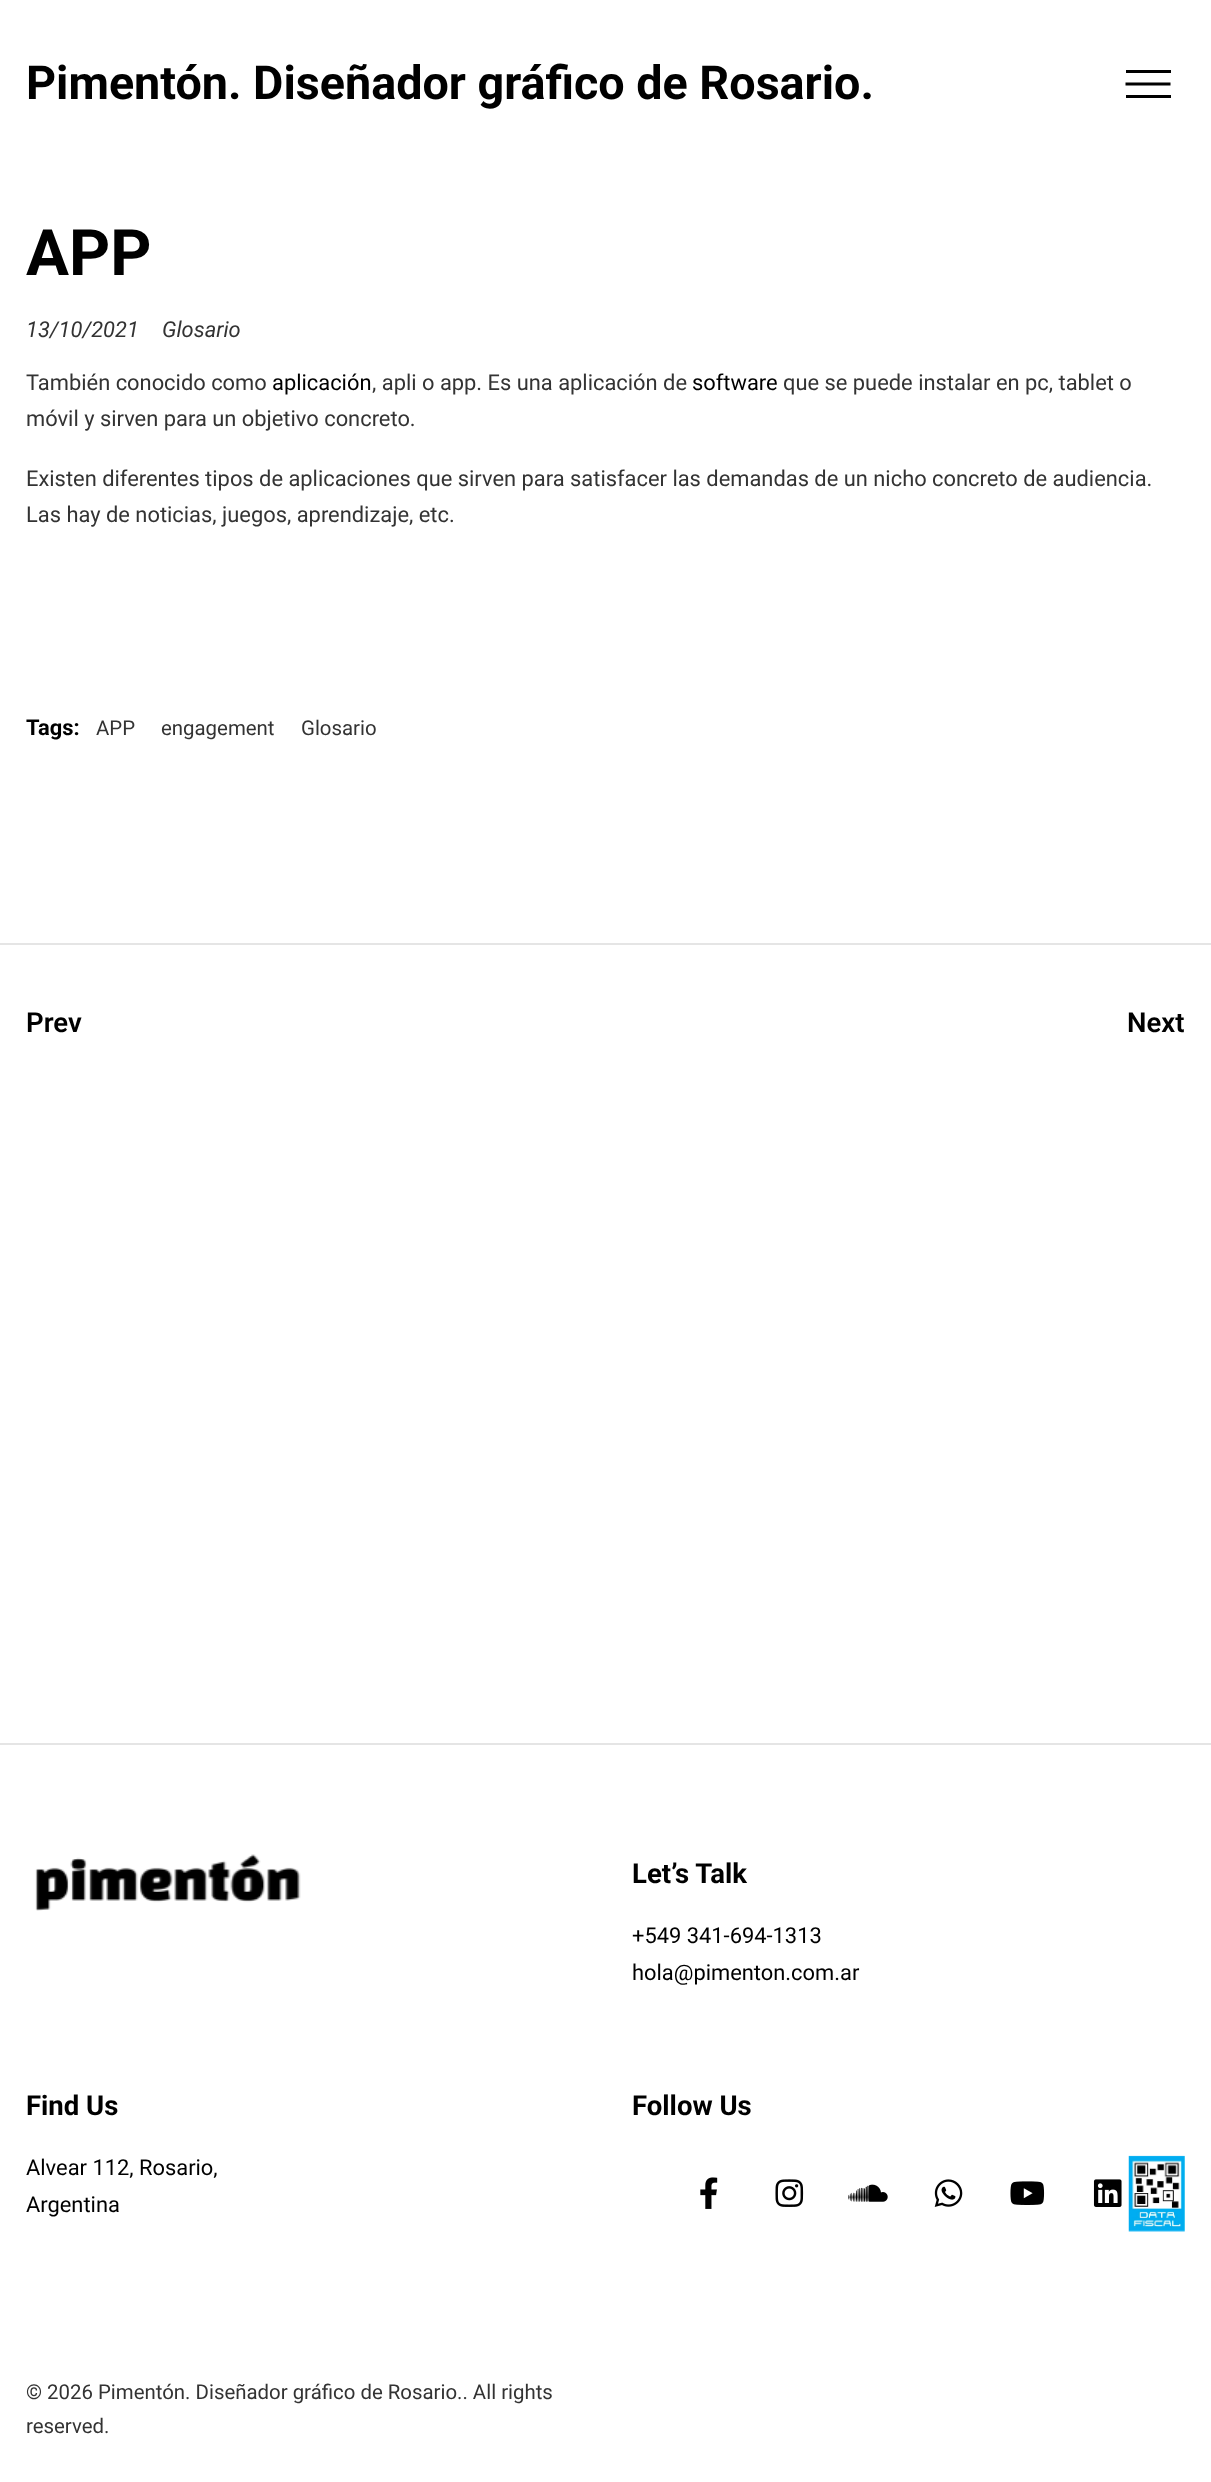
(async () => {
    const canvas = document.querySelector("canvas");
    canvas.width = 1211;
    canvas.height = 2482;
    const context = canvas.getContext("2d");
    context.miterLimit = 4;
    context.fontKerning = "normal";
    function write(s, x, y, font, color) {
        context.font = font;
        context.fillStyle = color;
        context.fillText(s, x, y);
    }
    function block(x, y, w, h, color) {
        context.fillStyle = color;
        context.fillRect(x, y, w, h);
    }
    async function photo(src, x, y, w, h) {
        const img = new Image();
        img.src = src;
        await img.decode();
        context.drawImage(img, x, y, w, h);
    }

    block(0, 0, 1211, 2482, "rgb(255, 255, 255)");
    write("Pimentón. Diseñador gráfico de Rosario.", 26, 99, "bold 46.7px Roboto", "rgb(0, 0, 0)");
    block(1126, 70, 45, 3, "rgb(0, 0, 0)");
    block(1126, 95, 45, 3, "rgb(0, 0, 0)");
    context.beginPath();
    context.moveTo(1125.5, 84);
    context.lineTo(1170.5, 84);
    context.strokeStyle = "rgb(0, 0, 0)";
    context.lineWidth = 3.2;
    context.stroke();
    write("APP", 26, 275, "bold 64px Roboto", "rgb(0, 0, 0)");
    write("13/10/2021", 26, 337, "italic 21.88px Roboto", "rgb(51, 51, 51)");
    write("Glosario", 162, 337, "italic 21.88px Roboto", "rgb(51, 51, 51)");
    write("También conocido como", 26, 390, "21.88px Roboto", "rgb(51, 51, 51)");
    write("aplicación", 272, 390, "21.88px Roboto", "rgb(0, 0, 0)");
    write(", apli o app. Es una aplicación de", 372, 390, "21.88px Roboto", "rgb(51, 51, 51)");
    write("software", 692, 390, "21.88px Roboto", "rgb(0, 0, 0)");
    write("que se puede instalar en pc, tablet o", 783, 390, "21.88px Roboto", "rgb(51, 51, 51)");
    write("móvil y sirven para un objetivo concreto.", 26, 426, "21.88px Roboto", "rgb(51, 51, 51)");
    write("Existen diferentes tipos de aplicaciones que sirven para satisfacer las demandas de un nicho concreto de audiencia.", 26, 486, "21.88px Roboto", "rgb(51, 51, 51)");
    write("Las hay de noticias, juegos, aprendizaje, etc.", 26, 522, "21.88px Roboto", "rgb(51, 51, 51)");
    write("Tags:", 26, 735, "bold 21.88px Roboto", "rgb(0, 0, 0)");
    write("APP", 96, 735, "20.4px Roboto", "rgb(51, 51, 51)");
    write("engagement", 161, 735, "20.4px Roboto", "rgb(51, 51, 51)");
    write("Glosario", 301, 735, "20.4px Roboto", "rgb(51, 51, 51)");
    block(0, 943, 1211, 2, "rgb(229, 229, 229)");
    write("Prev", 26, 1032, "600 27.5px Roboto", "rgb(0, 0, 0)");
    write("Next", 1127, 1032, "600 27.5px Roboto", "rgb(0, 0, 0)");
    block(0, 1743, 1211, 2, "rgb(229, 229, 229)");
    await photo("media/1.png", 35, 1854, 266, 57);
    write("Let’s Talk", 632, 1883, "bold 27.5px Roboto", "rgb(0, 0, 0)");
    write("+549 341-694-1313", 632, 1943, "21.88px Roboto", "rgb(0, 0, 0)");
    write("hola@pimenton.com.ar", 632, 1980, "21.88px Roboto", "rgb(0, 0, 0)");
    write("Find Us", 26, 2115, "bold 27.5px Roboto", "rgb(0, 0, 0)");
    write("Alvear 112, Rosario,", 26, 2175, "21.88px Roboto", "rgb(0, 0, 0)");
    write("Argentina", 26, 2212, "21.88px Roboto", "rgb(0, 0, 0)");
    write("Follow Us", 632, 2115, "bold 27.5px Roboto", "rgb(0, 0, 0)");
    await photo("media/2.png", 700, 2177, 18, 32);
    await photo("media/3.png", 775, 2179, 29, 28);
    await photo("media/4.png", 848, 2184, 40, 18);
    await photo("media/5.png", 934, 2179, 29, 28);
    await photo("media/6.png", 1010, 2181, 35, 24);
    await photo("media/7.png", 1093, 2179, 29, 28);
    await photo("media/8.png", 1128, 2155, 57, 77);
    write("© 2026 Pimentón. Diseñador gráfico de Rosario.. All rights", 26, 2399, "20.4px Roboto", "rgb(51, 51, 51)");
    write("reserved.", 26, 2433, "20.4px Roboto", "rgb(51, 51, 51)");
})();
